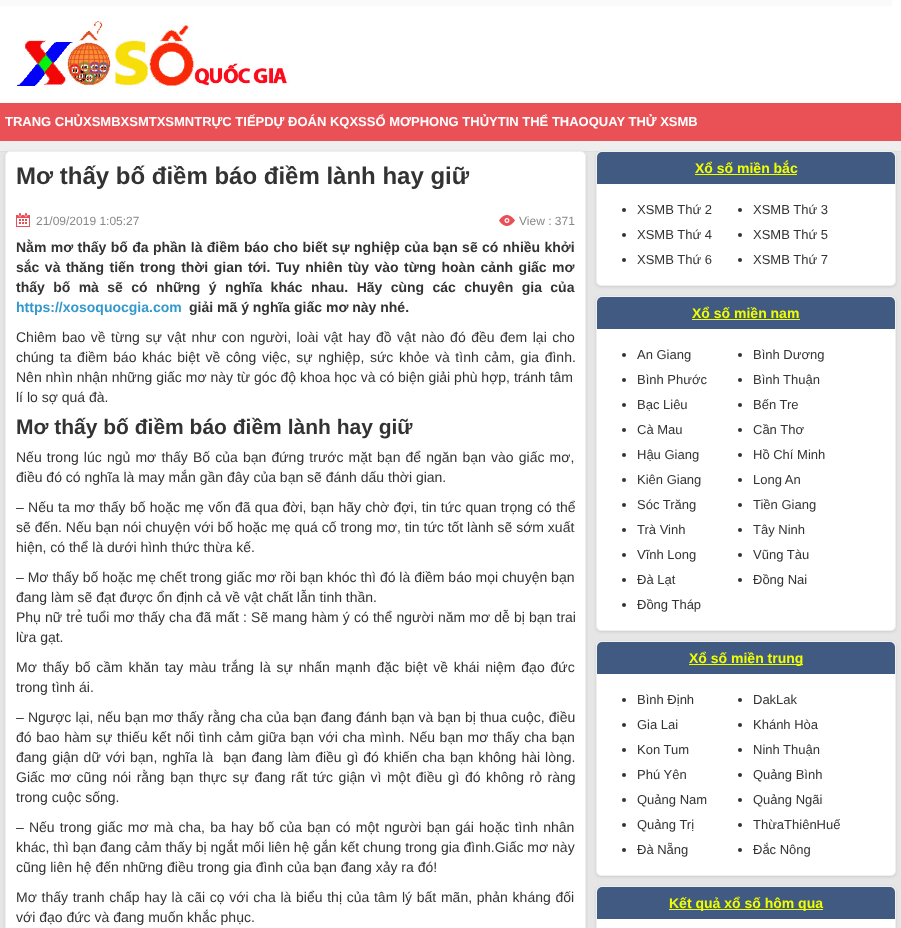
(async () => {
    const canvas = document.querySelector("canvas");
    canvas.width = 901;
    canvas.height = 928;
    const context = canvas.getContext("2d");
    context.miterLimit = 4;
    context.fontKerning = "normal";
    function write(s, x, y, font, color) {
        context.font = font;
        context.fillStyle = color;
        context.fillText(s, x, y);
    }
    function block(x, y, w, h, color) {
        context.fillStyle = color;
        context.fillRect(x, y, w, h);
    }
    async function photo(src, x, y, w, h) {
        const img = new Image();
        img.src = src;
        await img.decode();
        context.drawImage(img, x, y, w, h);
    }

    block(0, 0, 901, 928, "rgb(238, 238, 238)");
    block(0, 0, 901, 103, "rgb(255, 255, 255)");
    block(0, 0, 892, 6, "rgb(250, 250, 250)");
    await photo("media/1.png", 15, 21, 274, 67);
    block(0, 103, 901, 38, "rgb(234, 81, 87)");
    write("TRANG CHỦXSMBXSMTXSMNTRỰC TIẾPDỰ ĐOÁN KQXSSỔ MƠPHONG THỦYTIN THỂ THAOQUAY THỬ XSMB", 5, 126, "bold 13px Liberation Sans", "rgb(255, 255, 255)");
    block(0, 152, 901, 776, "rgb(230, 230, 230)");
    block(0, 151, 901, 1, "rgb(223, 223, 223)");
    context.fillStyle = "rgb(204, 204, 204)";
    context.filter = "blur(1.5px)";
    context.beginPath();
    context.roundRect(5, 152, 581, 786, 5);
    context.fill();
    context.filter = "none";
    context.fillStyle = "rgb(255, 255, 255)";
    context.beginPath();
    context.roundRect(5.5, 151.5, 580, 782, 4.5);
    context.fill();
    context.strokeStyle = "rgb(239, 239, 239)";
    context.stroke();
    write("Mơ thấy bố điềm báo điềm lành hay giữ", 16, 184, "bold 24px Liberation Sans", "rgb(51, 51, 51)");
    await photo("media/2.png", 16, 213, 14, 14);
    write("21/09/2019 1:05:27", 36, 225, "12px Liberation Sans", "rgb(136, 136, 136)");
    await photo("media/3.png", 499, 215, 16, 11);
    write("View : 371", 519, 225, "12px Liberation Sans", "rgb(136, 136, 136)");
    context.wordSpacing = "0.5px";
    write("Nằm mơ thấy bố đa phần là điềm báo cho biết sự nghiệp của bạn sẽ có nhiều khởi", 16, 252, "bold 14px Liberation Sans", "rgb(51, 51, 51)");
    context.wordSpacing = "1.6px";
    write("sắc và thăng tiến trong thời gian tới. Tuy nhiên tùy vào từng hoàn cảnh giấc mơ", 16, 272, "bold 14px Liberation Sans", "rgb(51, 51, 51)");
    context.wordSpacing = "4.5px";
    write("thấy bố mà sẽ có những ý nghĩa khác nhau. Hãy cùng các chuyên gia của", 16, 292, "bold 14px Liberation Sans", "rgb(51, 51, 51)");
    context.wordSpacing = "0px";
    write("https://xosoquocgia.com", 16, 312, "bold 14px Liberation Sans", "rgb(51, 153, 204)");
    write("giải mã ý nghĩa giấc mơ này nhé.", 189, 312, "bold 14px Liberation Sans", "rgb(51, 51, 51)");
    context.wordSpacing = "1.6px";
    write("Chiêm bao về từng sự vật như con người, loài vật hay đồ vật nào đó đều đem lại cho", 16, 342, "14px Liberation Sans", "rgb(51, 51, 51)");
    context.wordSpacing = "1.75px";
    write("chúng ta điềm báo khác biệt về công việc, sự nghiệp, sức khỏe và tình cảm, gia đình.", 16, 362, "14px Liberation Sans", "rgb(51, 51, 51)");
    context.wordSpacing = "0px";
    write("Nên nhìn nhận những giấc mơ này từ góc độ khoa học và có biện giải phù hợp, tránh tâm", 16, 382, "14px Liberation Sans", "rgb(51, 51, 51)");
    write("lí lo sợ quá đà.", 16, 402, "14px Liberation Sans", "rgb(51, 51, 51)");
    write("Mơ thấy bố điềm báo điềm lành hay giữ", 16, 434, "bold 21px Liberation Sans", "rgb(51, 51, 51)");
    context.wordSpacing = "1.25px";
    write("Nếu trong lúc ngủ mơ thấy Bố của bạn đứng trước mặt bạn để ngăn bạn vào giấc mơ,", 16, 462, "14px Liberation Sans", "rgb(51, 51, 51)");
    context.wordSpacing = "0px";
    write("điều đó có nghĩa là may mắn gần đây của bạn sẽ đánh dấu thời gian.", 16, 482, "14px Liberation Sans", "rgb(51, 51, 51)");
    context.wordSpacing = "0.4px";
    write("– Nếu ta mơ thấy bố hoặc mẹ vốn đã qua đời, bạn hãy chờ đợi, tin tức quan trọng có thể", 16, 512, "14px Liberation Sans", "rgb(51, 51, 51)");
    context.wordSpacing = "0px";
    write("sẽ đến. Nếu bạn nói chuyện với bố hoặc mẹ quá cố trong mơ, tin tức tốt lành sẽ sớm xuất", 16, 532, "14px Liberation Sans", "rgb(51, 51, 51)");
    write("hiện, có thể là dưới hình thức thừa kế.", 16, 552, "14px Liberation Sans", "rgb(51, 51, 51)");
    write("– Mơ thấy bố hoặc mẹ chết trong giấc mơ rồi bạn khóc thì đó là điềm báo mọi chuyện bạn", 16, 582, "14px Liberation Sans", "rgb(51, 51, 51)");
    write("đang làm sẽ đạt được ổn định cả về vật chất lẫn tinh thần.", 16, 602, "14px Liberation Sans", "rgb(51, 51, 51)");
    context.wordSpacing = "0.25px";
    write("Phụ nữ trẻ tuổi mơ thấy cha đã mất : Sẽ mang hàm ý có thể người năm mơ dễ bị bạn trai", 16, 622, "14px Liberation Sans", "rgb(51, 51, 51)");
    context.wordSpacing = "0px";
    write("lừa gạt.", 16, 642, "14px Liberation Sans", "rgb(51, 51, 51)");
    context.wordSpacing = "1.9px";
    write("Mơ thấy bố cầm khăn tay màu trắng là sự nhấn mạnh đặc biệt về khái niệm đạo đức", 16, 672, "14px Liberation Sans", "rgb(51, 51, 51)");
    context.wordSpacing = "0px";
    write("trong tình ái.", 16, 692, "14px Liberation Sans", "rgb(51, 51, 51)");
    context.wordSpacing = "0.2px";
    write("– Ngược lại, nếu bạn mơ thấy rằng cha của bạn đang đánh bạn và bạn bị thua cuộc, điều", 16, 722, "14px Liberation Sans", "rgb(51, 51, 51)");
    context.wordSpacing = "0.75px";
    write("đó bao hàm sự thiếu kết nối tình cảm giữa bạn với cha mình. Nếu bạn mơ thấy cha bạn", 16, 742, "14px Liberation Sans", "rgb(51, 51, 51)");
    context.wordSpacing = "1.1px";
    write("đang giận dữ với bạn, nghĩa là  bạn đang làm điều gì đó khiến cha bạn không hài lòng.", 16, 762, "14px Liberation Sans", "rgb(51, 51, 51)");
    context.wordSpacing = "1.6px";
    write("Giấc mơ cũng nói rằng bạn thực sự đang rất tức giận vì một điều gì đó không rỏ ràng", 16, 782, "14px Liberation Sans", "rgb(51, 51, 51)");
    context.wordSpacing = "0px";
    write("trong cuộc sống.", 16, 802, "14px Liberation Sans", "rgb(51, 51, 51)");
    context.wordSpacing = "1.3px";
    write("– Nếu trong giấc mơ mà cha, ba hay bố của bạn có một người bạn gái hoặc tình nhân", 16, 832, "14px Liberation Sans", "rgb(51, 51, 51)");
    context.wordSpacing = "0px";
    write("khác, thì bạn đang cảm thấy bị ngắt mối liên hệ gắn kết chung trong gia đình.Giấc mơ này", 16, 852, "14px Liberation Sans", "rgb(51, 51, 51)");
    write("cũng liên hệ đến những điều trong gia đình của bạn đang xảy ra đó!", 16, 872, "14px Liberation Sans", "rgb(51, 51, 51)");
    context.wordSpacing = "0.8px";
    write("Mơ thấy tranh chấp hay là cãi cọ với cha là biểu thị của tâm lý bất mãn, phản kháng đối", 16, 902, "14px Liberation Sans", "rgb(51, 51, 51)");
    context.wordSpacing = "0px";
    write("với đạo đức và đang muốn khắc phục.", 16, 922, "14px Liberation Sans", "rgb(51, 51, 51)");
    context.fillStyle = "rgb(204, 204, 204)";
    context.filter = "blur(1.5px)";
    context.beginPath();
    context.roundRect(596, 152, 300, 135, 5);
    context.fill();
    context.filter = "none";
    context.fillStyle = "rgb(255, 255, 255)";
    context.beginPath();
    context.roundRect(596.5, 151.5, 299, 134, 4.5);
    context.fill();
    context.stroke();
    context.fillStyle = "rgb(65, 90, 130)";
    context.beginPath();
    context.roundRect(597, 152, 298, 32, [5, 5, 0, 0]);
    context.fill();
    write("Xổ số miền bắc", 695, 173, "bold 14px Liberation Sans", "rgb(240, 255, 0)");
    block(695, 174, 102, 1, "rgb(240, 255, 0)");
    context.fillStyle = "rgb(51, 51, 51)";
    context.beginPath();
    context.arc(624, 210, 2, 0, Math.PI * 2);
    context.fill();
    write("XSMB Thứ 2", 637, 214, "13px Liberation Sans", "rgb(51, 51, 51)");
    context.beginPath();
    context.arc(740, 210, 2, 0, Math.PI * 2);
    context.fill();
    write("XSMB Thứ 3", 753, 214, "13px Liberation Sans", "rgb(51, 51, 51)");
    context.beginPath();
    context.arc(624, 235, 2, 0, Math.PI * 2);
    context.fill();
    write("XSMB Thứ 4", 637, 239, "13px Liberation Sans", "rgb(51, 51, 51)");
    context.beginPath();
    context.arc(740, 235, 2, 0, Math.PI * 2);
    context.fill();
    write("XSMB Thứ 5", 753, 239, "13px Liberation Sans", "rgb(51, 51, 51)");
    context.beginPath();
    context.arc(624, 260, 2, 0, Math.PI * 2);
    context.fill();
    write("XSMB Thứ 6", 637, 264, "13px Liberation Sans", "rgb(51, 51, 51)");
    context.beginPath();
    context.arc(740, 260, 2, 0, Math.PI * 2);
    context.fill();
    write("XSMB Thứ 7", 753, 264, "13px Liberation Sans", "rgb(51, 51, 51)");
    context.fillStyle = "rgb(204, 204, 204)";
    context.filter = "blur(1.5px)";
    context.beginPath();
    context.roundRect(596, 297, 300, 335, 5);
    context.fill();
    context.filter = "none";
    context.fillStyle = "rgb(255, 255, 255)";
    context.beginPath();
    context.roundRect(596.5, 296.5, 299, 334, 4.5);
    context.fill();
    context.stroke();
    context.fillStyle = "rgb(65, 90, 130)";
    context.beginPath();
    context.roundRect(597, 297, 298, 32, [5, 5, 0, 0]);
    context.fill();
    write("Xổ số miền nam", 692, 318, "bold 14px Liberation Sans", "rgb(240, 255, 0)");
    block(692, 319, 108, 1, "rgb(240, 255, 0)");
    context.fillStyle = "rgb(51, 51, 51)";
    context.beginPath();
    context.arc(624, 355, 2, 0, Math.PI * 2);
    context.fill();
    write("An Giang", 637, 359, "13px Liberation Sans", "rgb(51, 51, 51)");
    context.beginPath();
    context.arc(740, 355, 2, 0, Math.PI * 2);
    context.fill();
    write("Bình Dương", 753, 359, "13px Liberation Sans", "rgb(51, 51, 51)");
    context.beginPath();
    context.arc(624, 380, 2, 0, Math.PI * 2);
    context.fill();
    write("Bình Phước", 637, 384, "13px Liberation Sans", "rgb(51, 51, 51)");
    context.beginPath();
    context.arc(740, 380, 2, 0, Math.PI * 2);
    context.fill();
    write("Bình Thuận", 753, 384, "13px Liberation Sans", "rgb(51, 51, 51)");
    context.beginPath();
    context.arc(624, 405, 2, 0, Math.PI * 2);
    context.fill();
    write("Bạc Liêu", 637, 409, "13px Liberation Sans", "rgb(51, 51, 51)");
    context.beginPath();
    context.arc(740, 405, 2, 0, Math.PI * 2);
    context.fill();
    write("Bến Tre", 753, 409, "13px Liberation Sans", "rgb(51, 51, 51)");
    context.beginPath();
    context.arc(624, 430, 2, 0, Math.PI * 2);
    context.fill();
    write("Cà Mau", 637, 434, "13px Liberation Sans", "rgb(51, 51, 51)");
    context.beginPath();
    context.arc(740, 430, 2, 0, Math.PI * 2);
    context.fill();
    write("Cần Thơ", 753, 434, "13px Liberation Sans", "rgb(51, 51, 51)");
    context.beginPath();
    context.arc(624, 455, 2, 0, Math.PI * 2);
    context.fill();
    write("Hậu Giang", 637, 459, "13px Liberation Sans", "rgb(51, 51, 51)");
    context.beginPath();
    context.arc(740, 455, 2, 0, Math.PI * 2);
    context.fill();
    write("Hồ Chí Minh", 753, 459, "13px Liberation Sans", "rgb(51, 51, 51)");
    context.beginPath();
    context.arc(624, 480, 2, 0, Math.PI * 2);
    context.fill();
    write("Kiên Giang", 637, 484, "13px Liberation Sans", "rgb(51, 51, 51)");
    context.beginPath();
    context.arc(740, 480, 2, 0, Math.PI * 2);
    context.fill();
    write("Long An", 753, 484, "13px Liberation Sans", "rgb(51, 51, 51)");
    context.beginPath();
    context.arc(624, 505, 2, 0, Math.PI * 2);
    context.fill();
    write("Sóc Trăng", 637, 509, "13px Liberation Sans", "rgb(51, 51, 51)");
    context.beginPath();
    context.arc(740, 505, 2, 0, Math.PI * 2);
    context.fill();
    write("Tiền Giang", 753, 509, "13px Liberation Sans", "rgb(51, 51, 51)");
    context.beginPath();
    context.arc(624, 530, 2, 0, Math.PI * 2);
    context.fill();
    write("Trà Vinh", 637, 534, "13px Liberation Sans", "rgb(51, 51, 51)");
    context.beginPath();
    context.arc(740, 530, 2, 0, Math.PI * 2);
    context.fill();
    write("Tây Ninh", 753, 534, "13px Liberation Sans", "rgb(51, 51, 51)");
    context.beginPath();
    context.arc(624, 555, 2, 0, Math.PI * 2);
    context.fill();
    write("Vĩnh Long", 637, 559, "13px Liberation Sans", "rgb(51, 51, 51)");
    context.beginPath();
    context.arc(740, 555, 2, 0, Math.PI * 2);
    context.fill();
    write("Vũng Tàu", 753, 559, "13px Liberation Sans", "rgb(51, 51, 51)");
    context.beginPath();
    context.arc(624, 580, 2, 0, Math.PI * 2);
    context.fill();
    write("Đà Lạt", 637, 584, "13px Liberation Sans", "rgb(51, 51, 51)");
    context.beginPath();
    context.arc(740, 580, 2, 0, Math.PI * 2);
    context.fill();
    write("Đồng Nai", 753, 584, "13px Liberation Sans", "rgb(51, 51, 51)");
    context.beginPath();
    context.arc(624, 605, 2, 0, Math.PI * 2);
    context.fill();
    write("Đồng Tháp", 637, 609, "13px Liberation Sans", "rgb(51, 51, 51)");
    context.fillStyle = "rgb(204, 204, 204)";
    context.filter = "blur(1.5px)";
    context.beginPath();
    context.roundRect(596, 642, 300, 235, 5);
    context.fill();
    context.filter = "none";
    context.fillStyle = "rgb(255, 255, 255)";
    context.beginPath();
    context.roundRect(596.5, 641.5, 299, 234, 4.5);
    context.fill();
    context.stroke();
    context.fillStyle = "rgb(65, 90, 130)";
    context.beginPath();
    context.roundRect(597, 642, 298, 32, [5, 5, 0, 0]);
    context.fill();
    block(689, 664, 114, 1, "rgb(240, 255, 0)");
    write("Xổ số miền trung", 689, 663, "bold 14px Liberation Sans", "rgb(240, 255, 0)");
    context.fillStyle = "rgb(51, 51, 51)";
    context.beginPath();
    context.arc(624, 700, 2, 0, Math.PI * 2);
    context.fill();
    write("Bình Định", 637, 704, "13px Liberation Sans", "rgb(51, 51, 51)");
    context.beginPath();
    context.arc(740, 700, 2, 0, Math.PI * 2);
    context.fill();
    write("DakLak", 753, 704, "13px Liberation Sans", "rgb(51, 51, 51)");
    context.beginPath();
    context.arc(624, 725, 2, 0, Math.PI * 2);
    context.fill();
    write("Gia Lai", 637, 729, "13px Liberation Sans", "rgb(51, 51, 51)");
    context.beginPath();
    context.arc(740, 725, 2, 0, Math.PI * 2);
    context.fill();
    write("Khánh Hòa", 753, 729, "13px Liberation Sans", "rgb(51, 51, 51)");
    context.beginPath();
    context.arc(624, 750, 2, 0, Math.PI * 2);
    context.fill();
    write("Kon Tum", 637, 754, "13px Liberation Sans", "rgb(51, 51, 51)");
    context.beginPath();
    context.arc(740, 750, 2, 0, Math.PI * 2);
    context.fill();
    write("Ninh Thuận", 753, 754, "13px Liberation Sans", "rgb(51, 51, 51)");
    context.beginPath();
    context.arc(624, 775, 2, 0, Math.PI * 2);
    context.fill();
    write("Phú Yên", 637, 779, "13px Liberation Sans", "rgb(51, 51, 51)");
    context.beginPath();
    context.arc(740, 775, 2, 0, Math.PI * 2);
    context.fill();
    write("Quảng Bình", 753, 779, "13px Liberation Sans", "rgb(51, 51, 51)");
    context.beginPath();
    context.arc(624, 800, 2, 0, Math.PI * 2);
    context.fill();
    write("Quảng Nam", 637, 804, "13px Liberation Sans", "rgb(51, 51, 51)");
    context.beginPath();
    context.arc(740, 800, 2, 0, Math.PI * 2);
    context.fill();
    write("Quảng Ngãi", 753, 804, "13px Liberation Sans", "rgb(51, 51, 51)");
    context.beginPath();
    context.arc(624, 825, 2, 0, Math.PI * 2);
    context.fill();
    write("Quảng Trị", 637, 829, "13px Liberation Sans", "rgb(51, 51, 51)");
    context.beginPath();
    context.arc(740, 825, 2, 0, Math.PI * 2);
    context.fill();
    write("ThừaThiênHuế", 753, 829, "13px Liberation Sans", "rgb(51, 51, 51)");
    context.beginPath();
    context.arc(624, 850, 2, 0, Math.PI * 2);
    context.fill();
    write("Đà Nẵng", 637, 854, "13px Liberation Sans", "rgb(51, 51, 51)");
    context.beginPath();
    context.arc(740, 850, 2, 0, Math.PI * 2);
    context.fill();
    write("Đắc Nông", 753, 854, "13px Liberation Sans", "rgb(51, 51, 51)");
    context.fillStyle = "rgb(204, 204, 204)";
    context.filter = "blur(1.5px)";
    context.beginPath();
    context.roundRect(596, 887, 300, 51, 5);
    context.fill();
    context.filter = "none";
    context.fillStyle = "rgb(255, 255, 255)";
    context.beginPath();
    context.roundRect(596.5, 886.5, 299, 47, 4.5);
    context.fill();
    context.stroke();
    context.fillStyle = "rgb(65, 90, 130)";
    context.beginPath();
    context.roundRect(597, 887, 298, 32, [5, 5, 0, 0]);
    context.fill();
    block(669, 909, 154, 1, "rgb(240, 255, 0)");
    write("Kết quả xổ số hôm qua", 669, 908, "bold 14px Liberation Sans", "rgb(240, 255, 0)");
})();
